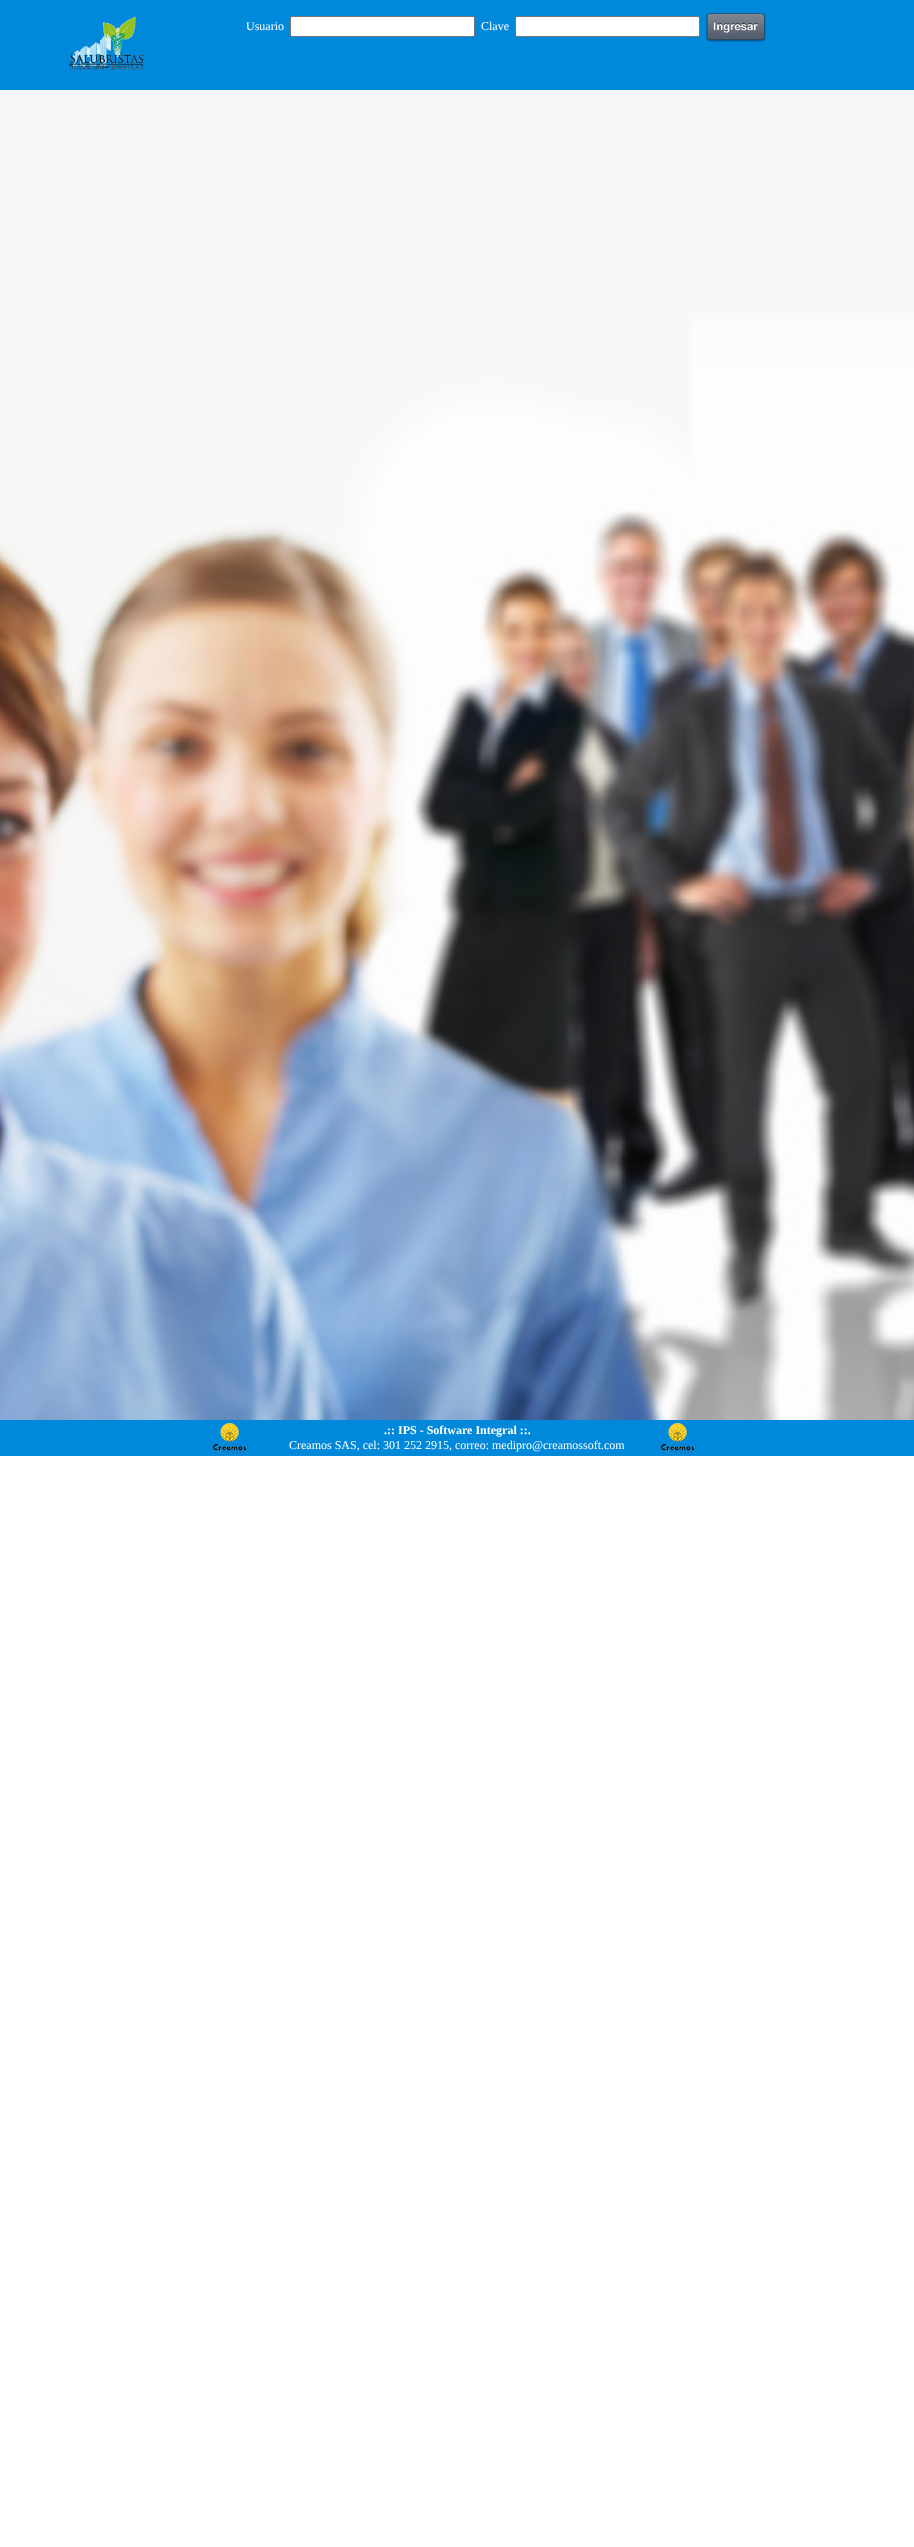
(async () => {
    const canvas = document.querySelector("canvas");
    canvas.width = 914;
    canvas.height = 2547;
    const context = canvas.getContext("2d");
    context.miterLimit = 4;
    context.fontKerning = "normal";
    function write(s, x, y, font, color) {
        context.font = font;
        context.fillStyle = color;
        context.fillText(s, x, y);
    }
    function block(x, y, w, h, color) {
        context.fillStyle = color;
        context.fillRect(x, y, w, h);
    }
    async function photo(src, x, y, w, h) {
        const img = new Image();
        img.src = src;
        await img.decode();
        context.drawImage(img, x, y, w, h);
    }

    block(0, 0, 914, 2547, "rgb(255, 255, 255)");
    block(0, 0, 914, 90, "rgb(0, 136, 219)");
    await photo("media/1.png", 69, 16, 74, 55);
    write("Usuario", 246, 30, "12px Liberation Serif", "rgb(255, 255, 255)");
    context.beginPath();
    context.roundRect(290.5, 16.5, 184, 20, 1.5);
    context.fill();
    context.strokeStyle = "rgb(118, 118, 118)";
    context.stroke();
    write("Clave", 481, 30, "12px Liberation Serif", "rgb(255, 255, 255)");
    context.beginPath();
    context.roundRect(515.5, 16.5, 184, 20, 1.5);
    context.fill();
    context.stroke();
    await photo("media/2.png", 706, 13, 60, 29);
    await photo("media/3.png", 0, 90, 914, 1330);
    block(0, 1420, 914, 36, "rgb(0, 136, 219)");
    await photo("media/4.png", 213, 1423, 33, 30);
    write(".:: IPS - Software Integral ::.", 384, 1434, "bold 12px Liberation Serif", "rgb(255, 255, 255)");
    write("Creamos SAS, cel: 301 252 2915, correo: medipro@creamossoft.com", 289, 1449, "12px Liberation Serif", "rgb(255, 255, 255)");
    await photo("media/4.png", 661, 1423, 33, 30);
})();
